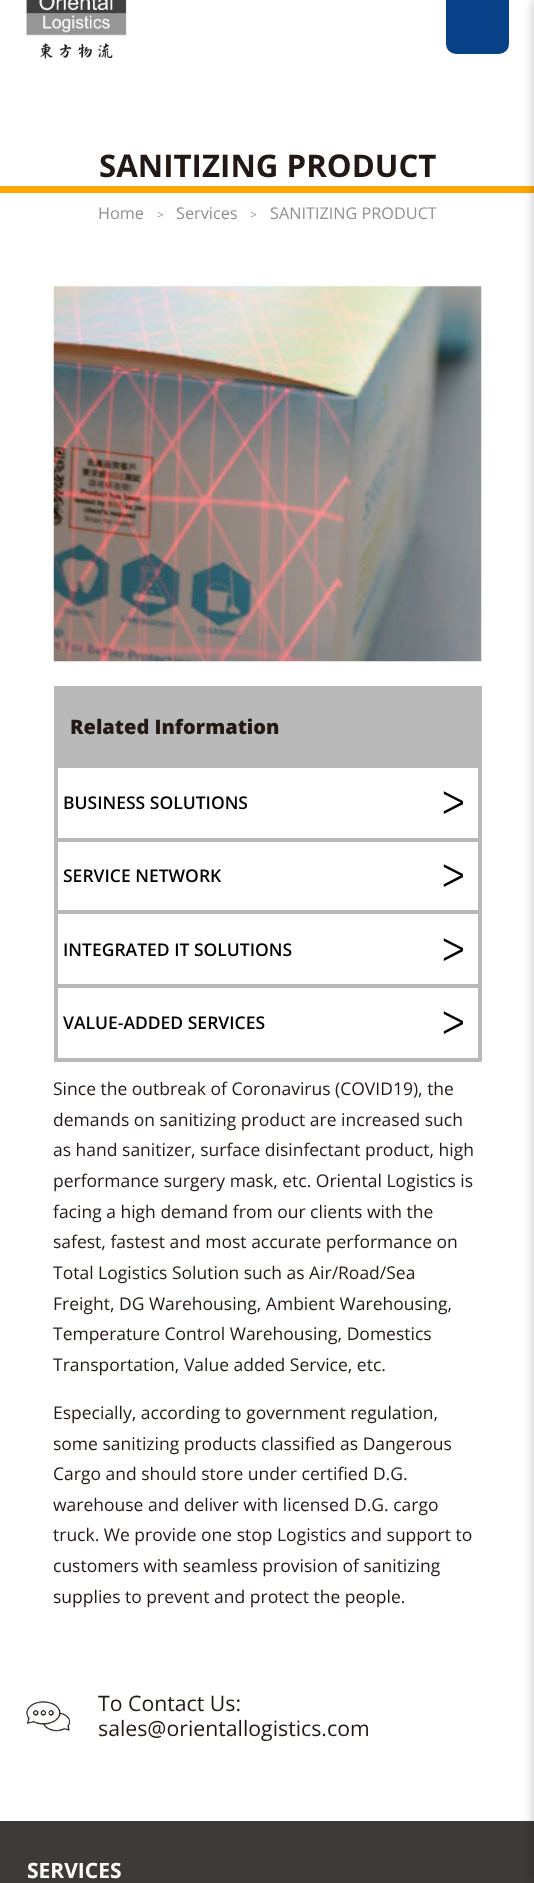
(async () => {
    const canvas = document.querySelector("canvas");
    canvas.width = 534;
    canvas.height = 1883;
    const context = canvas.getContext("2d");
    context.miterLimit = 4;
    context.fontKerning = "normal";
    function write(s, x, y, font, color) {
        context.font = font;
        context.fillStyle = color;
        context.fillText(s, x, y);
    }
    function block(x, y, w, h, color) {
        context.fillStyle = color;
        context.fillRect(x, y, w, h);
    }
    function card(x, y, w, h, r, color) {
        context.fillStyle = color;
        context.beginPath();
        context.roundRect(x, y, w, h, r);
        context.fill();
    }
    async function photo(src, x, y, w, h) {
        const img = new Image();
        img.src = src;
        await img.decode();
        context.drawImage(img, x, y, w, h);
    }

    block(0, 0, 534, 1883, "rgb(255, 255, 255)");
    await photo("media/1.png", 26, 0, 101, 59);
    card(446, -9, 63, 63, 10, "rgb(8, 65, 135)");
    block(0, 186, 534, 7, "rgb(255, 165, 0)");
    block(0, 1821, 534, 62, "rgb(62, 58, 57)");
    context.fillStyle = "rgba(0, 0, 0, 0.3)";
    context.filter = "blur(6px)";
    context.beginPath();
    context.rect(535, 0, 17, 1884);
    context.fill();
    context.filter = "none";
    write("SANITIZING PRODUCT", 99, 177, "bold 31.25px Open Sans", "rgb(34, 24, 21)");
    write("Home", 98, 219, "16.25px Open Sans", "rgb(144, 144, 144)");
    write(">", 157, 219, "12px Open Sans", "rgb(144, 144, 144)");
    write("Services", 176, 219, "16.25px Open Sans", "rgb(144, 144, 144)");
    write(">", 250, 219, "12px Open Sans", "rgb(144, 144, 144)");
    write("SANITIZING PRODUCT", 270, 219, "16.25px Open Sans", "rgb(144, 144, 144)");
    await photo("media/2.png", 53, 286, 429, 376);
    block(54, 686, 427, 3, "rgb(185, 185, 185)");
    block(54, 765, 427, 3, "rgb(185, 185, 185)");
    block(54, 838, 427, 4, "rgb(185, 185, 185)");
    block(54, 910, 427, 4, "rgb(185, 185, 185)");
    block(54, 984, 427, 4, "rgb(185, 185, 185)");
    block(478, 984, 4, 77, "rgb(185, 185, 185)");
    block(478, 910, 4, 78, "rgb(185, 185, 185)");
    block(478, 838, 4, 76, "rgb(185, 185, 185)");
    block(478, 764, 4, 77, "rgb(185, 185, 185)");
    block(478, 686, 4, 82, "rgb(185, 185, 185)");
    block(54, 1058, 427, 4, "rgb(185, 185, 185)");
    block(54, 984, 4, 77, "rgb(185, 185, 185)");
    block(54, 910, 4, 78, "rgb(185, 185, 185)");
    block(54, 838, 4, 76, "rgb(185, 185, 185)");
    block(54, 764, 4, 77, "rgb(185, 185, 185)");
    block(54, 686, 4, 82, "rgb(185, 185, 185)");
    block(58, 689, 420, 76, "rgb(185, 185, 185)");
    write("Related Information", 70, 734, "800 20px Open Sans", "rgb(34, 24, 21)");
    write("BUSINESS SOLUTIONS", 63, 809, "600 17.5px Open Sans", "rgb(0, 0, 0)");
    write("ᐳ", 442, 814, "31.25px DejaVu Sans", "rgb(0, 0, 0)");
    write("SERVICE NETWORK", 63, 882, "600 17.5px Open Sans", "rgb(0, 0, 0)");
    write("ᐳ", 442, 887, "31.25px DejaVu Sans", "rgb(0, 0, 0)");
    write("INTEGRATED IT SOLUTIONS", 63, 956, "600 17.5px Open Sans", "rgb(0, 0, 0)");
    write("ᐳ", 442, 961, "31.25px DejaVu Sans", "rgb(0, 0, 0)");
    write("VALUE-ADDED SERVICES", 63, 1029, "600 17.5px Open Sans", "rgb(0, 0, 0)");
    write("ᐳ", 442, 1034, "31.25px DejaVu Sans", "rgb(0, 0, 0)");
    write("Since the outbreak of Coronavirus (COVID19), the", 53, 1095, "17.5px Open Sans", "rgb(34, 24, 21)");
    write("demands on sanitizing product are increased such", 53, 1126, "17.5px Open Sans", "rgb(34, 24, 21)");
    write("as hand sanitizer, surface disinfectant product, high", 53, 1156, "17.5px Open Sans", "rgb(34, 24, 21)");
    write("performance surgery mask, etc. Oriental Logistics is", 53, 1187, "17.5px Open Sans", "rgb(34, 24, 21)");
    write("facing a high demand from our clients with the", 53, 1218, "17.5px Open Sans", "rgb(34, 24, 21)");
    write("safest, fastest and most accurate performance on", 53, 1248, "17.5px Open Sans", "rgb(34, 24, 21)");
    write("Total Logistics Solution such as Air/Road/Sea", 53, 1279, "17.5px Open Sans", "rgb(34, 24, 21)");
    write("Freight, DG Warehousing, Ambient Warehousing,", 53, 1310, "17.5px Open Sans", "rgb(34, 24, 21)");
    write("Temperature Control Warehousing, Domestics", 53, 1340, "17.5px Open Sans", "rgb(34, 24, 21)");
    write("Transportation, Value added Service, etc.", 53, 1371, "17.5px Open Sans", "rgb(34, 24, 21)");
    write("Especially, according to government regulation,", 53, 1419, "17.5px Open Sans", "rgb(34, 24, 21)");
    write("some sanitizing products classified as Dangerous", 53, 1450, "17.5px Open Sans", "rgb(34, 24, 21)");
    write("Cargo and should store under certified D.G.", 53, 1480, "17.5px Open Sans", "rgb(34, 24, 21)");
    write("warehouse and deliver with licensed D.G. cargo", 53, 1511, "17.5px Open Sans", "rgb(34, 24, 21)");
    write("truck. We provide one stop Logistics and support to", 53, 1541, "17.5px Open Sans", "rgb(34, 24, 21)");
    write("customers with seamless provision of sanitizing", 53, 1572, "17.5px Open Sans", "rgb(34, 24, 21)");
    write("supplies to prevent and protect the people.", 53, 1603, "17.5px Open Sans", "rgb(34, 24, 21)");
    await photo("media/3.png", 26, 1701, 44, 31);
    write("To Contact Us:", 98, 1711, "21.25px Open Sans", "rgb(34, 24, 21)");
    write("sales@orientallogistics.com", 98, 1736, "21.25px Open Sans", "rgb(34, 24, 21)");
    write("SERVICES", 27, 1878, "bold 21px Open Sans", "rgb(255, 255, 255)");
})();
